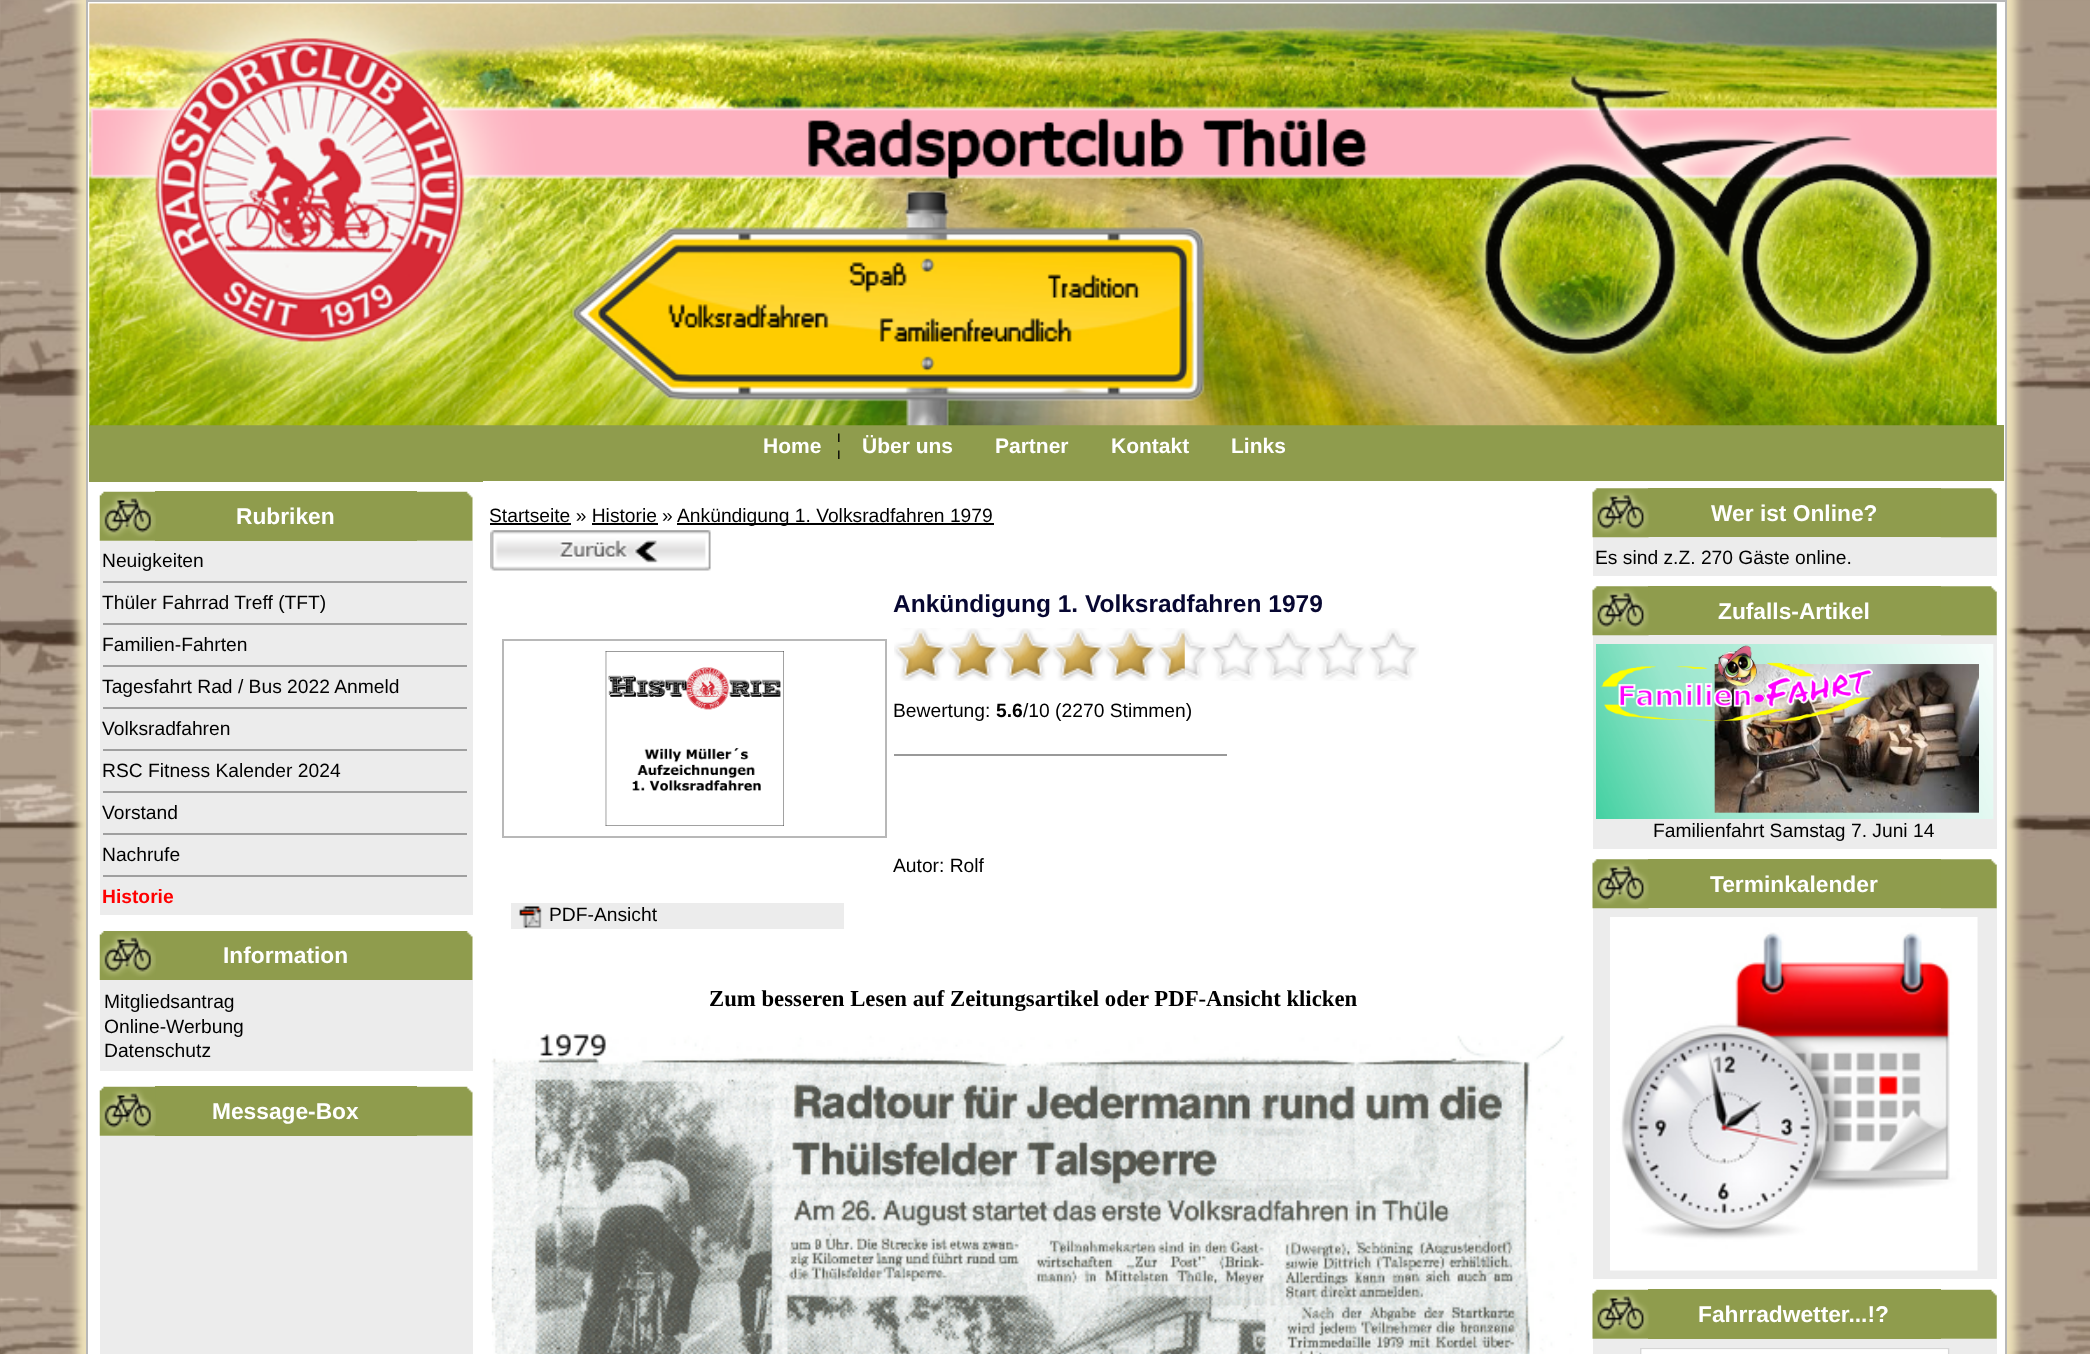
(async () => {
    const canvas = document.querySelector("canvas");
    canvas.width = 2090;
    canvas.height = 1354;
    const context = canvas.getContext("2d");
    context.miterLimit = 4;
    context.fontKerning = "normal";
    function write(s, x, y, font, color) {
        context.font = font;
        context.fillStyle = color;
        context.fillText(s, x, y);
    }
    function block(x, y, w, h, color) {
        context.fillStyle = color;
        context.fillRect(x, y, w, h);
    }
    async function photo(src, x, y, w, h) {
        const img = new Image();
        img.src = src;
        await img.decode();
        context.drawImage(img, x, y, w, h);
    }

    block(0, 0, 2090, 1354, "rgb(255, 255, 255)");
    await photo("media/1.png", 0, 0, 2090, 1354);
    context.fillStyle = "rgb(237, 225, 185)";
    context.filter = "blur(4.5px)";
    context.beginPath();
    context.rect(77, -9, 1939, 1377);
    context.fill();
    context.filter = "none";
    context.fillStyle = "rgb(255, 255, 255)";
    context.beginPath();
    context.rect(87, 1, 1919, 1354);
    context.fill();
    context.strokeStyle = "rgb(184, 184, 184)";
    context.lineWidth = 2;
    context.stroke();
    block(89, 425, 1915, 57, "rgb(143, 156, 77)");
    await photo("media/2.png", 89, 3, 1908, 423);
    write("Home", 763, 453, "bold 21px Liberation Sans", "rgb(255, 255, 255)");
    write("¦", 836, 453, "28px Liberation Serif", "rgb(0, 0, 0)");
    write("Über uns", 862, 453, "bold 21px Liberation Sans", "rgb(255, 255, 255)");
    write("Partner", 995, 453, "bold 21px Liberation Sans", "rgb(255, 255, 255)");
    write("Kontakt", 1111, 453, "bold 21px Liberation Sans", "rgb(255, 255, 255)");
    write("Links", 1231, 453, "bold 21px Liberation Sans", "rgb(255, 255, 255)");
    block(155, 491, 262, 50, "rgb(143, 156, 77)");
    await photo("media/3.png", 99, 491, 57, 50);
    write("Rubriken", 236, 524, "bold 22.75px Liberation Sans", "rgb(255, 255, 255)");
    await photo("media/4.png", 417, 491, 56, 50);
    block(100, 541, 373, 374, "rgb(236, 236, 236)");
    write("Neuigkeiten", 102, 567, "19.25px Liberation Sans", "rgb(0, 0, 0)");
    block(103, 581, 366, 2, "rgb(159, 159, 159)");
    block(467, 581, 2, 2, "rgb(238, 238, 238)");
    write("Thüler Fahrrad Treff (TFT)", 102, 609, "19.25px Liberation Sans", "rgb(0, 0, 0)");
    block(103, 623, 366, 2, "rgb(159, 159, 159)");
    block(467, 623, 2, 2, "rgb(238, 238, 238)");
    write("Familien-Fahrten", 102, 651, "19.25px Liberation Sans", "rgb(0, 0, 0)");
    block(103, 665, 366, 2, "rgb(159, 159, 159)");
    block(467, 665, 2, 2, "rgb(238, 238, 238)");
    write("Tagesfahrt Rad / Bus 2022 Anmeld", 102, 693, "19.25px Liberation Sans", "rgb(0, 0, 0)");
    block(103, 707, 366, 2, "rgb(159, 159, 159)");
    block(467, 707, 2, 2, "rgb(238, 238, 238)");
    write("Volksradfahren", 102, 735, "19.25px Liberation Sans", "rgb(0, 0, 0)");
    block(103, 749, 366, 2, "rgb(159, 159, 159)");
    block(467, 749, 2, 2, "rgb(238, 238, 238)");
    write("RSC Fitness Kalender 2024", 102, 777, "19.25px Liberation Sans", "rgb(0, 0, 0)");
    block(103, 791, 366, 2, "rgb(159, 159, 159)");
    block(467, 791, 2, 2, "rgb(238, 238, 238)");
    write("Vorstand", 102, 819, "19.25px Liberation Sans", "rgb(0, 0, 0)");
    block(103, 833, 366, 2, "rgb(159, 159, 159)");
    block(467, 833, 2, 2, "rgb(238, 238, 238)");
    write("Nachrufe", 102, 861, "19.25px Liberation Sans", "rgb(0, 0, 0)");
    block(103, 875, 366, 2, "rgb(159, 159, 159)");
    block(467, 875, 2, 2, "rgb(238, 238, 238)");
    write("Historie", 102, 903, "bold 19.25px Liberation Sans", "rgb(255, 0, 0)");
    block(155, 931, 262, 49, "rgb(143, 156, 77)");
    await photo("media/5.png", 99, 931, 57, 49);
    write("Information", 223, 963, "bold 22.75px Liberation Sans", "rgb(255, 255, 255)");
    await photo("media/6.png", 417, 931, 56, 49);
    block(100, 980, 373, 91, "rgb(236, 236, 236)");
    write("Mitgliedsantrag", 104, 1008, "19.25px Liberation Sans", "rgb(0, 0, 0)");
    write("Online-Werbung", 104, 1033, "19.25px Liberation Sans", "rgb(0, 0, 0)");
    write("Datenschutz", 104, 1057, "19.25px Liberation Sans", "rgb(0, 0, 0)");
    block(155, 1086, 262, 50, "rgb(143, 156, 77)");
    await photo("media/3.png", 99, 1086, 57, 50);
    write("Message-Box", 212, 1119, "bold 22.75px Liberation Sans", "rgb(255, 255, 255)");
    await photo("media/4.png", 417, 1086, 56, 50);
    block(100, 1136, 373, 218, "rgb(236, 236, 236)");
    block(483, 481, 1521, 1, "rgb(255, 255, 255)");
    write("Startseite » Historie", 489, 522, "19.25px Liberation Sans", "rgb(0, 0, 0)");
    block(490, 523, 81, 2, "rgb(0, 0, 0)");
    write("»", 662, 522, "19.25px Liberation Sans", "rgb(0, 0, 0)");
    block(677, 523, 317, 2, "rgb(0, 0, 0)");
    write("Ankündigung 1. Volksradfahren 1979", 677, 522, "19.25px Liberation Sans", "rgb(0, 0, 0)");
    block(592, 523, 66, 2, "rgb(0, 0, 0)");
    await photo("media/7.png", 490, 530, 221, 41);
    context.strokeRect(503, 640, 383, 197);
    await photo("media/8.png", 605, 651, 179, 175);
    write("Ankündigung 1. Volksradfahren 1979", 893, 612, "bold 24.5px Liberation Sans", "rgb(7, 7, 49)");
    block(894, 754, 333, 2, "rgb(153, 153, 153)");
    await photo("media/9.png", 894, 628, 525, 53);
    await photo("media/10.png", 894, 628, 291, 53);
    write("Bewertung:", 893, 717, "19.25px Liberation Sans", "rgb(0, 0, 0)");
    write("5.6", 996, 717, "bold 19.25px Liberation Sans", "rgb(0, 0, 0)");
    write("/10 (2270 Stimmen)", 1023, 717, "19.25px Liberation Sans", "rgb(0, 0, 0)");
    write("Autor: Rolf", 893, 872, "19.25px Liberation Sans", "rgb(0, 0, 0)");
    block(511, 903, 333, 26, "rgb(236, 236, 236)");
    await photo("media/11.png", 519, 906, 23, 22);
    write("PDF-Ansicht", 549, 921, "19.25px Liberation Sans", "rgb(0, 0, 0)");
    write("Zum besseren Lesen auf Zeitungsartikel oder PDF-Ansicht klicken", 709, 1006, "bold 22.75px Liberation Serif", "rgb(0, 0, 0)");
    await photo("media/12.png", 491, 1034, 1086, 320);
    block(1648, 488, 293, 49, "rgb(143, 156, 77)");
    block(1593, 537, 404, 39, "rgb(236, 236, 236)");
    await photo("media/13.png", 1592, 488, 57, 50);
    write("Wer ist Online?", 1711, 521, "bold 22.75px Liberation Sans", "rgb(255, 255, 255)");
    await photo("media/14.png", 1940, 488, 57, 50);
    write("Es sind z.Z. 270 Gäste online.", 1595, 564, "19.25px Liberation Sans", "rgb(0, 0, 0)");
    block(1648, 586, 293, 49, "rgb(143, 156, 77)");
    block(1593, 635, 404, 214, "rgb(236, 236, 236)");
    await photo("media/13.png", 1592, 586, 57, 50);
    write("Zufalls-Artikel", 1718, 619, "bold 22.75px Liberation Sans", "rgb(255, 255, 255)");
    await photo("media/14.png", 1940, 586, 57, 50);
    await photo("media/15.png", 1596, 644, 398, 175);
    write("Familienfahrt Samstag 7. Juni 14", 1653, 837, "19.25px Liberation Sans", "rgb(0, 0, 0)");
    block(1648, 859, 293, 49, "rgb(143, 156, 77)");
    block(1593, 908, 404, 371, "rgb(236, 236, 236)");
    await photo("media/13.png", 1592, 859, 57, 50);
    write("Terminkalender", 1710, 892, "bold 22.75px Liberation Sans", "rgb(255, 255, 255)");
    await photo("media/14.png", 1940, 859, 57, 50);
    await photo("media/16.png", 1610, 917, 368, 354);
    block(1648, 1289, 293, 50, "rgb(143, 156, 77)");
    await photo("media/17.png", 1592, 1289, 57, 50);
    write("Fahrradwetter...!?", 1698, 1322, "bold 22.75px Liberation Sans", "rgb(255, 255, 255)");
    await photo("media/18.png", 1941, 1289, 56, 50);
    block(1593, 1339, 404, 15, "rgb(236, 236, 236)");
    await photo("media/19.png", 1640, 1348, 310, 6);
})();
